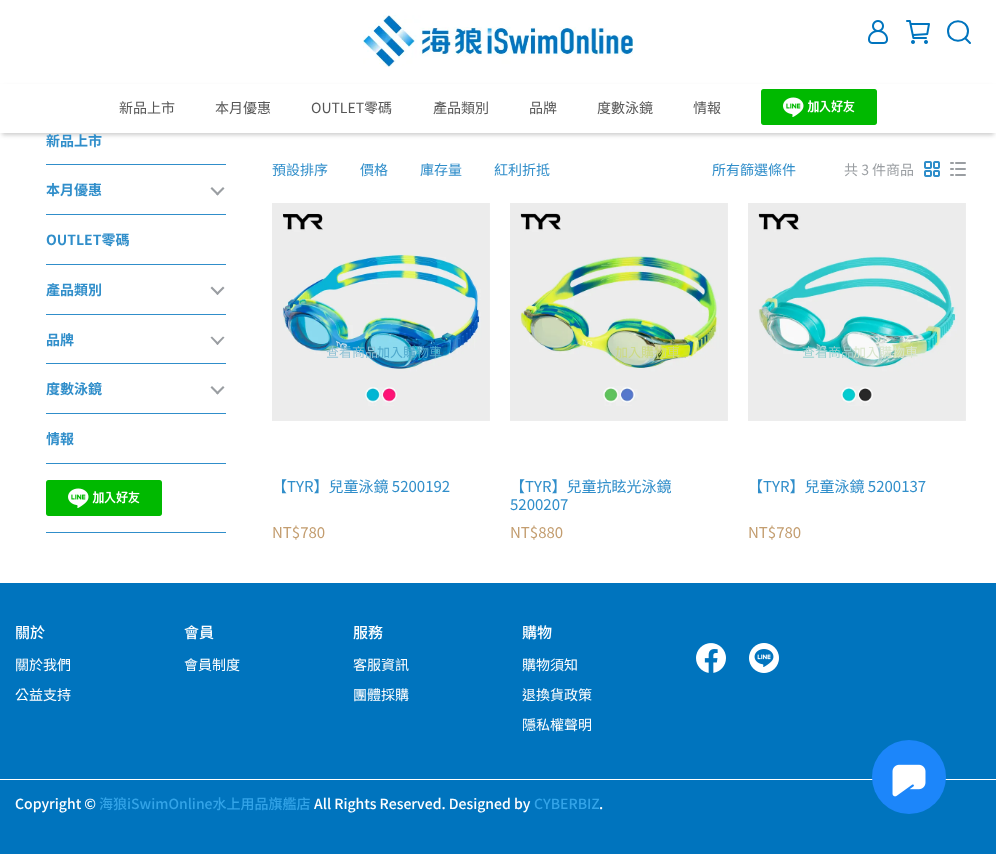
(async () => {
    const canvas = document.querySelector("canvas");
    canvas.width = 996;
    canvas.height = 854;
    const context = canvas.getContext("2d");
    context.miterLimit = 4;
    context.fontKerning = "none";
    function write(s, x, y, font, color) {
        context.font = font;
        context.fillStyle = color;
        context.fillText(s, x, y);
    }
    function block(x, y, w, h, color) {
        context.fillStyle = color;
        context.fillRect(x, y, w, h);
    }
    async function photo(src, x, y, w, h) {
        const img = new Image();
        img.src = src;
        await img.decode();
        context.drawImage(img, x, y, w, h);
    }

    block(0, 0, 996, 854, "rgb(255, 255, 255)");
    await photo("media/1.png", 363, 15, 270, 52);
    await photo("media/2.png", 868, 20, 20, 24);
    await photo("media/3.png", 906, 20, 24, 24);
    context.beginPath();
    context.moveTo(968, 31);
    context.bezierCurveTo(968, 44, 948, 44, 948, 31);
    context.bezierCurveTo(948, 18, 968, 18, 968, 31);
    context.closePath();
    context.moveTo(966, 39);
    context.lineTo(970, 43);
    context.strokeStyle = "rgb(0, 116, 190)";
    context.lineWidth = 2;
    context.lineCap = "round";
    context.lineJoin = "round";
    context.stroke();
    context.fillStyle = "rgba(0, 0, 0, 0.2)";
    context.filter = "blur(2px)";
    context.beginPath();
    context.rect(2, 87, 992, 48);
    context.fill();
    context.filter = "none";
    block(0, 84, 996, 49, "rgb(255, 255, 255)");
    write("新品上市", 119, 113, "14px Noto Sans TC", "rgb(86, 86, 86)");
    write("本月優惠", 215, 113, "14px Noto Sans TC", "rgb(86, 86, 86)");
    write("OUTLET零碼", 311, 113, "14px Noto Sans TC", "rgb(86, 86, 86)");
    write("產品類別", 433, 113, "14px Noto Sans TC", "rgb(86, 86, 86)");
    write("品牌", 529, 113, "14px Noto Sans TC", "rgb(86, 86, 86)");
    write("度數泳鏡", 597, 113, "14px Noto Sans TC", "rgb(86, 86, 86)");
    write("情報", 693, 113, "14px Noto Sans TC", "rgb(86, 86, 86)");
    await photo("media/4.png", 761, 89, 116, 36);
    block(46, 164, 180, 1, "rgb(48, 142, 202)");
    write("新品上市", 46, 146, "bold 14px Noto Sans TC", "rgb(48, 142, 202)");
    block(46, 214, 180, 1, "rgb(48, 142, 202)");
    write("本月優惠", 46, 195, "bold 14px Noto Sans TC", "rgb(48, 142, 202)");
    context.fillStyle = "rgb(154, 158, 162)";
    context.beginPath();
    context.moveTo(216, 194);
    context.lineTo(223, 187);
    context.lineTo(224.5, 188.5);
    context.lineTo(217.5, 195.5);
    context.closePath();
    context.fill();
    context.beginPath();
    context.moveTo(210.5, 188.5);
    context.lineTo(212, 187);
    context.lineTo(219, 194);
    context.lineTo(217.5, 195.5);
    context.closePath();
    context.fill();
    block(46, 264, 180, 1, "rgb(48, 142, 202)");
    write("OUTLET零碼", 46, 245, "bold 14px Noto Sans TC", "rgb(48, 142, 202)");
    block(46, 314, 180, 1, "rgb(48, 142, 202)");
    write("產品類別", 46, 295, "bold 14px Noto Sans TC", "rgb(48, 142, 202)");
    context.fillStyle = "rgb(154, 158, 162)";
    context.beginPath();
    context.moveTo(216, 293.5);
    context.lineTo(223, 286.5);
    context.lineTo(224.5, 288);
    context.lineTo(217.5, 295);
    context.closePath();
    context.fill();
    context.beginPath();
    context.moveTo(210.5, 288);
    context.lineTo(212, 286.5);
    context.lineTo(219, 293.5);
    context.lineTo(217.5, 295);
    context.closePath();
    context.fill();
    block(46, 363, 180, 1, "rgb(48, 142, 202)");
    write("品牌", 46, 345, "bold 14px Noto Sans TC", "rgb(48, 142, 202)");
    context.fillStyle = "rgb(154, 158, 162)";
    context.beginPath();
    context.moveTo(216, 343.5);
    context.lineTo(223, 336.5);
    context.lineTo(224.5, 337.5);
    context.lineTo(217.5, 345);
    context.closePath();
    context.fill();
    context.beginPath();
    context.moveTo(210.5, 337.5);
    context.lineTo(212, 336.5);
    context.lineTo(219, 343.5);
    context.lineTo(217.5, 345);
    context.closePath();
    context.fill();
    block(46, 413, 180, 1, "rgb(48, 142, 202)");
    write("度數泳鏡", 46, 394, "bold 14px Noto Sans TC", "rgb(48, 142, 202)");
    context.fillStyle = "rgb(154, 158, 162)";
    context.beginPath();
    context.moveTo(216, 393);
    context.lineTo(223, 386);
    context.lineTo(224.5, 387.5);
    context.lineTo(217.5, 394.5);
    context.closePath();
    context.fill();
    context.beginPath();
    context.moveTo(210.5, 387.5);
    context.lineTo(212, 386);
    context.lineTo(219, 393);
    context.lineTo(217.5, 394.5);
    context.closePath();
    context.fill();
    block(46, 463, 180, 1, "rgb(48, 142, 202)");
    write("情報", 46, 444, "bold 14px Noto Sans TC", "rgb(48, 142, 202)");
    block(46, 532, 180, 1, "rgb(48, 142, 202)");
    await photo("media/4.png", 46, 480, 116, 36);
    write("預設排序", 272, 175, "14px Noto Sans TC", "rgb(48, 142, 202)");
    write("價格", 360, 175, "14px Noto Sans TC", "rgb(48, 142, 202)");
    write("庫存量", 420, 175, "14px Noto Sans TC", "rgb(48, 142, 202)");
    write("紅利折抵", 494, 175, "14px Noto Sans TC", "rgb(48, 142, 202)");
    write("所有篩選條件", 712, 175, "14px Noto Sans TC", "rgb(48, 142, 202)");
    write("共 3 件商品", 844, 175, "14px Noto Sans TC", "rgb(154, 158, 162)");
    await photo("media/5.png", 924, 161, 16, 16);
    await photo("media/6.png", 950, 162, 16, 14);
    await photo("media/7.png", 272, 203, 218, 218);
    write("查看商品", 326, 357, "13px Noto Sans TC", "rgb(146, 195, 213)");
    write("加入購物車", 377, 357, "13px Noto Sans TC", "rgb(79, 168, 204)");
    write("【TYR】兒童泳鏡 5200192", 272, 492, "15px Noto Sans TC", "rgb(48, 142, 202)");
    write("NT$780", 272, 538, "15px Noto Sans TC", "rgb(195, 157, 111)");
    await photo("media/8.png", 510, 203, 218, 218);
    write("加入購物車", 615, 357, "13px Noto Sans TC", "rgb(205, 218, 131)");
    write("【TYR】兒童抗眩光泳鏡", 510, 492, "15px Noto Sans TC", "rgb(48, 142, 202)");
    write("5200207", 510, 510, "15px Noto Sans TC", "rgb(48, 142, 202)");
    write("NT$880", 510, 538, "15px Noto Sans TC", "rgb(195, 157, 111)");
    await photo("media/9.png", 748, 203, 218, 218);
    write("查看商品", 802, 357, "13px Noto Sans TC", "rgb(153, 208, 207)");
    write("加入購物車", 853, 357, "13px Noto Sans TC", "rgb(216, 229, 204)");
    write("【TYR】兒童泳鏡 5200137", 748, 492, "15px Noto Sans TC", "rgb(48, 142, 202)");
    write("NT$780", 748, 538, "15px Noto Sans TC", "rgb(195, 157, 111)");
    block(0, 583, 996, 271, "rgb(0, 116, 190)");
    write("關於", 15, 638, "500 15px Noto Sans TC", "rgb(255, 255, 255)");
    write("關於我們", 15, 670, "14px Noto Sans TC", "rgb(255, 255, 255)");
    write("公益支持", 15, 700, "14px Noto Sans TC", "rgb(255, 255, 255)");
    write("會員", 184, 638, "500 15px Noto Sans TC", "rgb(255, 255, 255)");
    write("會員制度", 184, 670, "14px Noto Sans TC", "rgb(255, 255, 255)");
    write("服務", 353, 638, "500 15px Noto Sans TC", "rgb(255, 255, 255)");
    write("客服資訊", 353, 670, "14px Noto Sans TC", "rgb(255, 255, 255)");
    write("團體採購", 353, 700, "14px Noto Sans TC", "rgb(255, 255, 255)");
    write("購物", 522, 638, "500 15px Noto Sans TC", "rgb(255, 255, 255)");
    write("購物須知", 522, 670, "14px Noto Sans TC", "rgb(255, 255, 255)");
    write("退換貨政策", 522, 700, "14px Noto Sans TC", "rgb(255, 255, 255)");
    write("隱私權聲明", 522, 730, "14px Noto Sans TC", "rgb(255, 255, 255)");
    await photo("media/10.png", 696, 643, 30, 30);
    await photo("media/11.png", 749, 643, 30, 30);
    block(0, 779, 996, 1, "rgb(255, 255, 255)");
    write("Copyright ©", 15, 809, "500 14px Noto Sans TC", "rgb(255, 255, 255)");
    write("海狼iSwimOnline水上用品旗艦店", 99, 809, "500 14px Noto Sans TC", "rgb(51, 164, 232)");
    write("All Rights Reserved. Designed by", 314, 809, "500 14px Noto Sans TC", "rgb(255, 255, 255)");
    write("CYBERBIZ", 534, 809, "500 14px Noto Sans TC", "rgb(51, 164, 232)");
    write(".", 599, 809, "500 14px Noto Sans TC", "rgb(255, 255, 255)");
    context.fillStyle = "rgb(28, 134, 250)";
    context.beginPath();
    context.arc(909, 777, 37, 0, Math.PI * 2);
    context.fill();
    await photo("media/12.png", 892, 764, 34, 33);
})();
